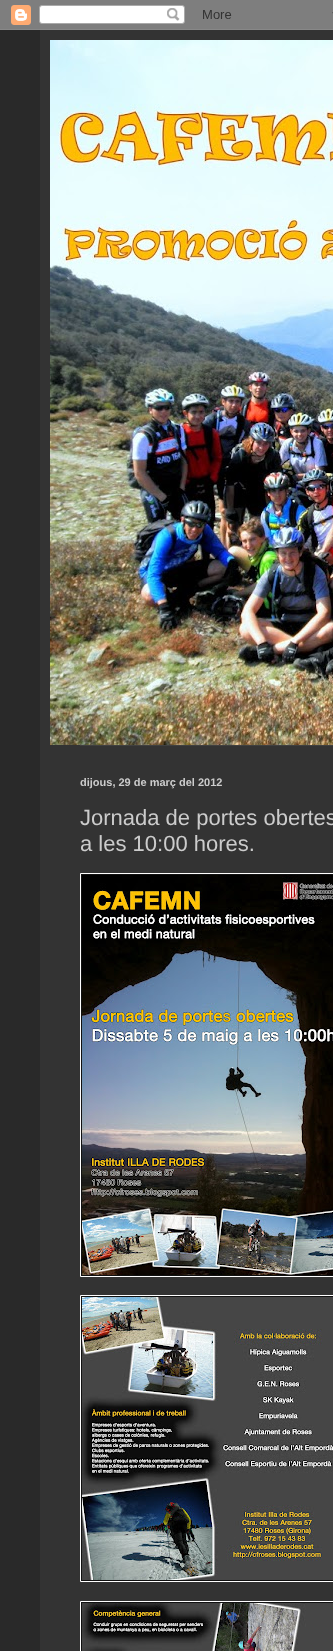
(async () => {
    const canvas = document.querySelector("canvas");
    canvas.width = 333;
    canvas.height = 1651;
    const context = canvas.getContext("2d");
    context.miterLimit = 4;
    context.fontKerning = "normal";
    function write(s, x, y, font, color) {
        context.font = font;
        context.fillStyle = color;
        context.fillText(s, x, y);
    }
    function block(x, y, w, h, color) {
        context.fillStyle = color;
        context.fillRect(x, y, w, h);
    }
    async function photo(src, x, y, w, h) {
        const img = new Image();
        img.src = src;
        await img.decode();
        context.drawImage(img, x, y, w, h);
    }

    block(0, 0, 333, 1651, "rgb(41, 41, 41)");
    await photo("media/1.png", 0, 0, 333, 30);
    block(40, 30, 293, 1621, "rgb(51, 51, 51)");
    await photo("media/2.png", 50, 40, 283, 705);
    block(80, 745, 253, 1, "rgb(64, 64, 64)");
    write("dijous, 29 de març del 2012", 80, 786, "bold 11px Liberation Sans", "rgb(204, 204, 204)");
    write("Jornada de portes obertes", 80, 825, "22px Liberation Sans", "rgb(204, 204, 204)");
    write("a les 10:00 hores.", 80, 851, "22px Liberation Sans", "rgb(204, 204, 204)");
    context.fillStyle = "rgb(17, 17, 17)";
    context.beginPath();
    context.rect(80.5, 873.5, 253, 403);
    context.fill();
    context.strokeStyle = "rgb(255, 255, 255)";
    context.stroke();
    await photo("media/3.png", 82, 875, 251, 400);
    context.beginPath();
    context.rect(80.5, 1295.5, 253, 286);
    context.fill();
    context.stroke();
    await photo("media/4.png", 82, 1297, 251, 283);
    context.beginPath();
    context.rect(80.5, 1601.5, 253, 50);
    context.fill();
    context.stroke();
    await photo("media/5.png", 82, 1603, 251, 48);
})();
